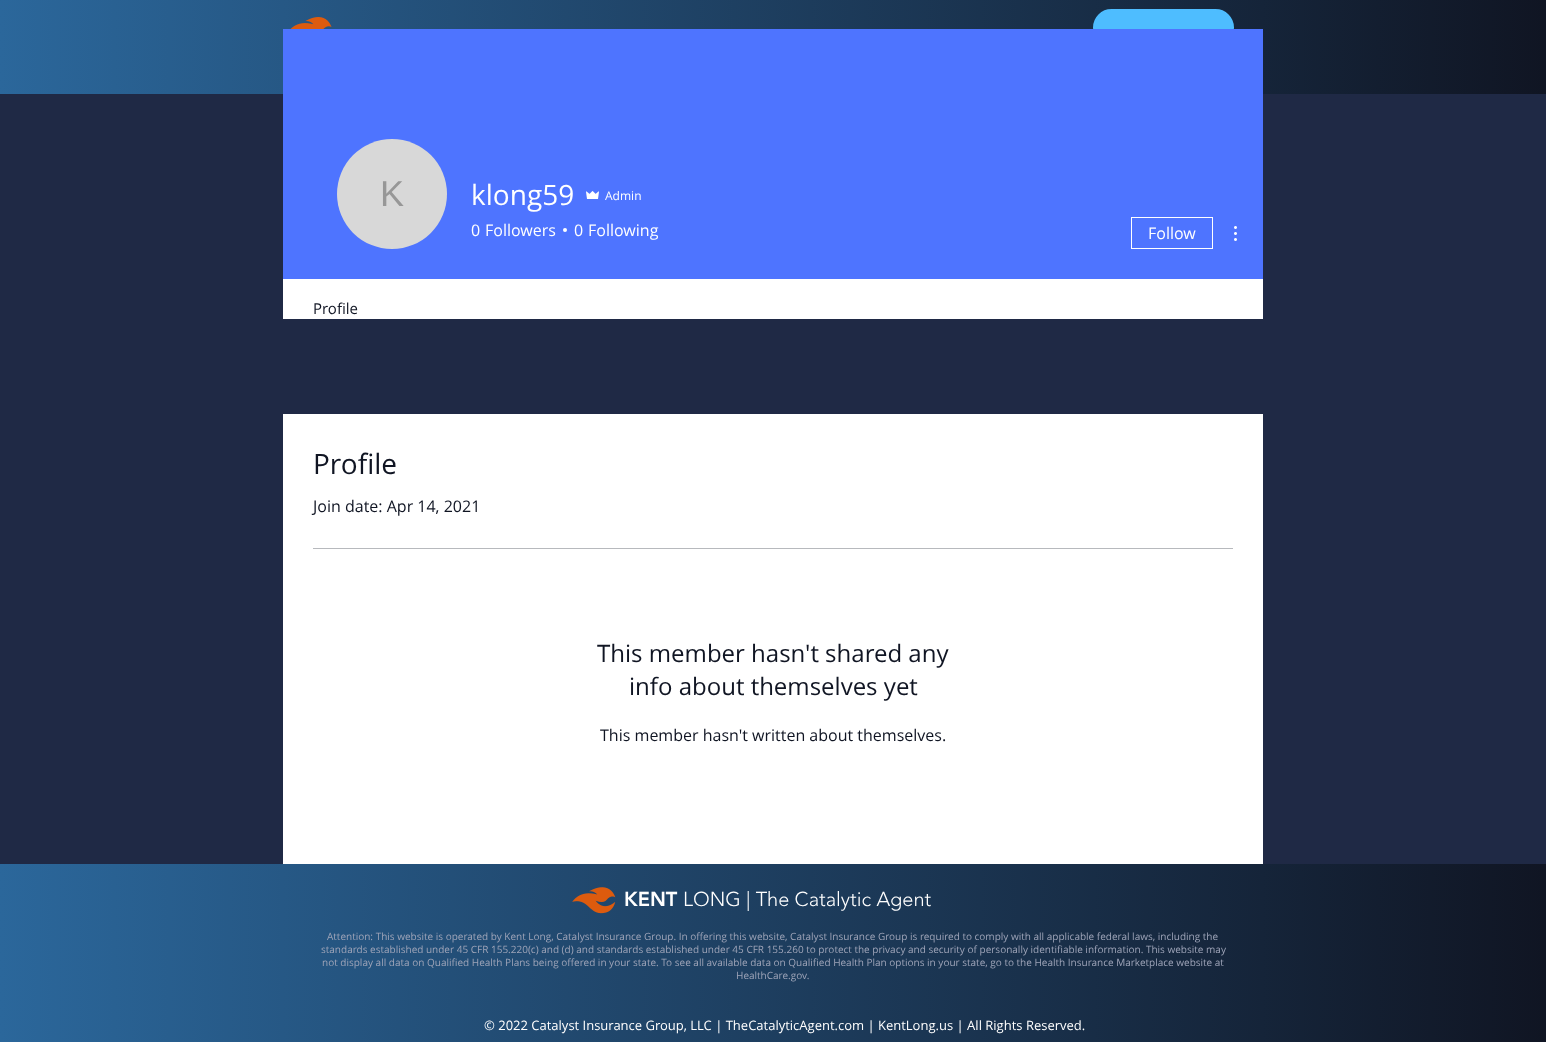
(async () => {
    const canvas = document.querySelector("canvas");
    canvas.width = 1546;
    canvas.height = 1042;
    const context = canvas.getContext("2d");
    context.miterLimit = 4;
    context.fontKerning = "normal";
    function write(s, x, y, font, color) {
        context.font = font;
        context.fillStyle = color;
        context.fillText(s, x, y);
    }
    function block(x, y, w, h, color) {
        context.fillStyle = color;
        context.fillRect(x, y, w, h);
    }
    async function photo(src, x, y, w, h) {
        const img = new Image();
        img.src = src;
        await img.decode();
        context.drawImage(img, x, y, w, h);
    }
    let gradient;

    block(0, 0, 1546, 1042, "rgb(31, 41, 69)");
    gradient = context.createLinearGradient(1546, 28, 0, 28);
    gradient.addColorStop(0, "rgb(16, 21, 35)");
    gradient.addColorStop(1, "rgb(43, 103, 155)");
    context.fillStyle = gradient;
    context.fillRect(0, 0, 1546, 94);
    await photo("media/1.png", 290, 17, 42, 12);
    context.fillStyle = "rgb(78, 189, 255)";
    context.beginPath();
    context.roundRect(1094, 10, 139, 35, 17.5);
    context.fill();
    context.strokeStyle = "rgb(78, 189, 255)";
    context.lineWidth = 2;
    context.stroke();
    block(283, 29, 980, 250, "rgb(78, 116, 255)");
    context.fillStyle = "rgb(216, 216, 216)";
    context.beginPath();
    context.arc(392, 194, 55, 0, Math.PI * 2);
    context.fill();
    write("K", 380, 206, "36px Liberation Sans", "rgb(151, 151, 151)");
    write("klong59", 471, 205, "28px Open Sans", "rgb(255, 255, 255)");
    await photo("media/2.png", 586, 191, 13, 8);
    write("Admin", 605, 200, "12px Open Sans", "rgb(255, 255, 255)");
    write("0", 471, 236, "16px Open Sans", "rgb(255, 255, 255)");
    write("Followers", 485, 236, "16px Open Sans", "rgb(255, 255, 255)");
    context.beginPath();
    context.arc(565, 230, 2, 0, Math.PI * 2);
    context.fill();
    write("0", 574, 236, "16px Open Sans", "rgb(255, 255, 255)");
    write("Following", 588, 236, "16px Open Sans", "rgb(255, 255, 255)");
    context.strokeStyle = "rgb(255, 255, 255)";
    context.lineWidth = 1;
    context.strokeRect(1131.5, 217.5, 81, 31);
    write("Follow", 1148, 239, "16px Open Sans", "rgb(255, 255, 255)");
    await photo("media/3.png", 1234, 226, 3, 15);
    block(283, 279, 980, 40, "rgb(255, 255, 255)");
    write("Profile", 313, 314, "15px Open Sans", "rgb(16, 21, 35)");
    block(283, 414, 980, 450, "rgb(255, 255, 255)");
    write("Profile", 313, 474, "28px Open Sans", "rgb(16, 21, 35)");
    write("Join date: Apr 14, 2021", 313, 512, "16px Open Sans", "rgb(16, 21, 35)");
    block(313, 548, 920, 1, "rgb(183, 185, 189)");
    write("This member hasn't shared any", 597, 662, "24px Open Sans", "rgb(16, 21, 35)");
    write("info about themselves yet", 629, 695, "24px Open Sans", "rgb(16, 21, 35)");
    write("This member hasn't written about themselves.", 600, 741, "16px Open Sans", "rgb(16, 21, 35)");
    gradient = context.createLinearGradient(1546, 970, 0, 971);
    gradient.addColorStop(0, "rgb(16, 21, 35)");
    gradient.addColorStop(1, "rgb(43, 103, 155)");
    context.fillStyle = gradient;
    context.fillRect(0, 864, 1546, 178);
    await photo("media/4.png", 572, 887, 44, 27);
    write("KENT", 624, 906, "900 20px 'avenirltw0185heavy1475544'", "rgb(255, 255, 255)");
    write("LONG | The Catalytic Agent", 683, 906, "300 20px 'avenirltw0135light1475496'", "rgb(255, 255, 255)");
    write("Attention: This website is operated by Kent Long, Catalyst Insurance Group. In offering this website, Catalyst Insurance Group is required to comply with all applicable federal laws, including the", 327, 940, "10px Open Sans", "rgb(158, 164, 184)");
    write("standards established under 45 CFR 155.220(c) and (d) and standards established under 45 CFR 155.260 to protect the privacy and security of personally identifiable information. This website may", 321, 953, "10px Open Sans", "rgb(158, 164, 184)");
    write("not display all data on Qualified Health Plans being offered in your state. To see all available data on Qualified Health Plan options in your state, go to the Health Insurance Marketplace website at", 322, 966, "10px Open Sans", "rgb(158, 164, 184)");
    write("HealthCare.gov.", 736, 979, "10px Open Sans", "rgb(158, 164, 184)");
    write("© 2022 Catalyst Insurance Group, LLC | TheCatalyticAgent.com | KentLong.us | All Rights Reserved.", 484, 1030, "13px Open Sans", "rgb(255, 255, 255)");
})();
